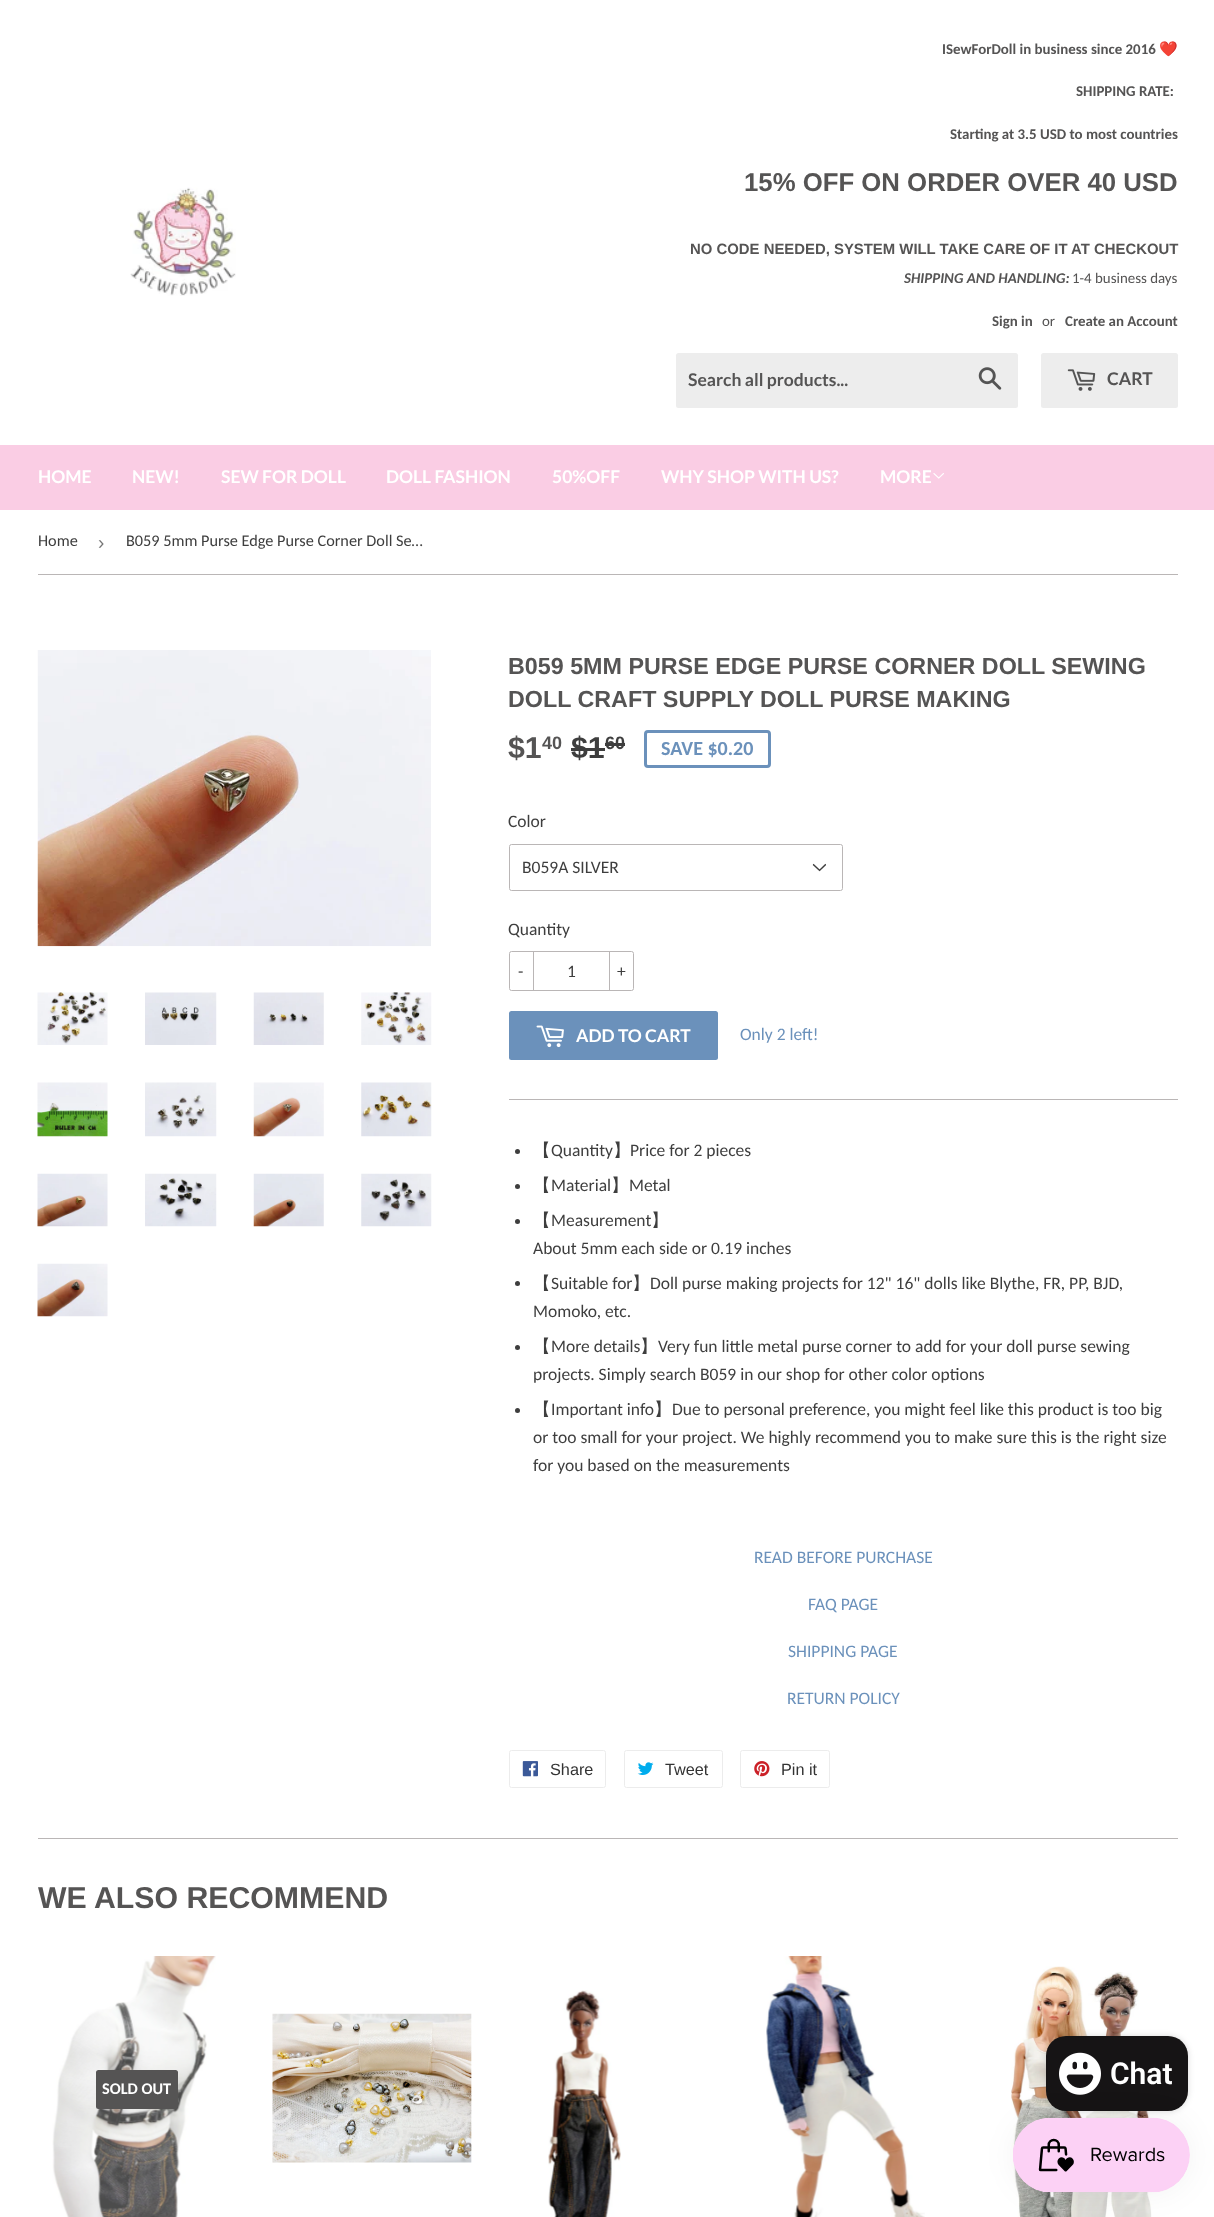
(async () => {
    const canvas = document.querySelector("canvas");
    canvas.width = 1214;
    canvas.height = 2217;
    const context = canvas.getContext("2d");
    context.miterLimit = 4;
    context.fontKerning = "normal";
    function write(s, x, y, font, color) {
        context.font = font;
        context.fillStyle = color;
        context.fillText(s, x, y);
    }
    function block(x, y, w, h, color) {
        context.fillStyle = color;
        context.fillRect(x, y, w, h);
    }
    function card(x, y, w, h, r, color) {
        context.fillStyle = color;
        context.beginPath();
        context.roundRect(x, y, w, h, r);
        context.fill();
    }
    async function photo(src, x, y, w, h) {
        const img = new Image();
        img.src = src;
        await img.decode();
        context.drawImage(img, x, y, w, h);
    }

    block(0, 0, 1214, 2217, "rgb(255, 255, 255)");
    await photo("media/1.png", 130, 187, 106, 109);
    write("ISewForDoll in business since 2016", 942, 54, "bold 14.9px Carlito", "rgb(85, 84, 84)");
    write("❤️", 1159, 54, "14.9px Noto Color Emoji", "rgb(85, 84, 84)");
    write("SHIPPING RATE:", 1076, 96, "bold 14.9px Carlito", "rgb(85, 84, 84)");
    write("Starting at 3.5 USD to most countries", 950, 139, "bold 14.9px Carlito", "rgb(85, 84, 84)");
    write("15% OFF ON ORDER OVER 40 USD", 744, 191, "bold 25.75px Liberation Sans", "rgb(85, 84, 84)");
    write("NO CODE NEEDED, SYSTEM WILL TAKE CARE OF IT AT CHECKOUT", 690, 254, "bold 14.9px Liberation Sans", "rgb(85, 84, 84)");
    write("SHIPPING AND HANDLING:", 904, 283, "italic bold 14.9px Carlito", "rgb(85, 84, 84)");
    write("1-4 business days", 1072, 283, "14.9px Carlito", "rgb(85, 84, 84)");
    write("Sign in", 992, 326, "bold 14.9px Carlito", "rgb(85, 84, 84)");
    write("or", 1042, 326, "14.9px Carlito", "rgb(85, 84, 84)");
    write("Create an Account", 1065, 326, "bold 14.9px Carlito", "rgb(85, 84, 84)");
    card(676, 353, 342, 55, 2.5, "rgb(237, 237, 237)");
    write("Search all products...", 688, 386, "bold 17.5px Lato", "rgb(85, 84, 84)");
    await photo("media/2.png", 978, 367, 24, 23);
    card(1041, 353, 137, 55, 2.5, "rgb(237, 237, 237)");
    await photo("media/3.png", 1067, 369, 29, 22);
    write("CART", 1107, 385, "bold 17.5px Lato", "rgb(85, 84, 84)");
    block(0, 445, 1214, 65, "rgb(250, 205, 228)");
    write("HOME", 38, 483, "bold 17.5px Lato", "rgb(255, 255, 255)");
    write("NEW!", 132, 483, "bold 17.5px Lato", "rgb(255, 255, 255)");
    write("SEW FOR DOLL", 221, 483, "bold 17.5px Lato", "rgb(255, 255, 255)");
    write("DOLL FASHION", 386, 483, "bold 17.5px Lato", "rgb(255, 255, 255)");
    write("50%OFF", 552, 483, "bold 17.5px Lato", "rgb(255, 255, 255)");
    write("WHY SHOP WITH US?", 661, 483, "bold 17.5px Lato", "rgb(255, 255, 255)");
    write("MORE", 880, 483, "bold 17.5px Lato", "rgb(255, 255, 255)");
    await photo("media/4.png", 933, 473, 11, 6);
    block(38, 574, 1140, 1, "rgb(186, 182, 182)");
    write("Home", 38, 546, "16.25px Carlito", "rgb(62, 62, 62)");
    write("›", 98, 549, "19px Liberation Sans", "rgb(118, 118, 118)");
    write("B059 5mm Purse Edge Purse Corner Doll Se…", 126, 546, "16.25px Carlito", "rgb(62, 62, 62)");
    await photo("media/5.png", 37, 650, 394, 297);
    await photo("media/6.png", 37, 992, 71, 53);
    await photo("media/7.png", 145, 992, 72, 53);
    await photo("media/8.png", 253, 992, 71, 53);
    await photo("media/9.png", 361, 992, 71, 53);
    await photo("media/10.png", 37, 1082, 71, 55);
    await photo("media/11.png", 145, 1082, 72, 55);
    await photo("media/12.png", 253, 1082, 71, 55);
    await photo("media/13.png", 361, 1082, 71, 55);
    await photo("media/14.png", 37, 1173, 71, 54);
    await photo("media/15.png", 145, 1173, 72, 54);
    await photo("media/16.png", 253, 1173, 71, 54);
    await photo("media/17.png", 361, 1173, 71, 54);
    await photo("media/18.png", 37, 1263, 71, 54);
    write("B059 5MM PURSE EDGE PURSE CORNER DOLL SEWING", 508, 674, "bold 23.3px Liberation Sans", "rgb(85, 84, 84)");
    write("DOLL CRAFT SUPPLY DOLL PURSE MAKING", 508, 707, "bold 23.3px Liberation Sans", "rgb(85, 84, 84)");
    write("$1", 508, 758, "bold 30.25px Liberation Sans", "rgb(85, 84, 84)");
    write("40", 542, 749, "bold 18px Liberation Sans", "rgb(85, 84, 84)");
    write("$1", 571, 758, "bold 30.25px Liberation Sans", "rgb(62, 62, 62)");
    block(571, 748, 34, 3, "rgb(62, 62, 62)");
    write("60", 605, 749, "bold 18px Liberation Sans", "rgb(62, 62, 62)");
    block(605, 743, 20, 3, "rgb(62, 62, 62)");
    context.beginPath();
    context.roundRect(645.5, 731.5, 124, 35, 2.5);
    context.strokeStyle = "rgb(107, 145, 187)";
    context.lineWidth = 3;
    context.stroke();
    write("SAVE $0.20", 661, 755, "bold 20px Carlito", "rgb(107, 145, 187)");
    write("Color", 508, 827, "17.5px Carlito", "rgb(62, 62, 62)");
    await photo("media/19.png", 812, 863, 14, 9);
    context.beginPath();
    context.roundRect(509.5, 844.5, 333, 46, 2);
    context.strokeStyle = "rgb(186, 182, 182)";
    context.lineWidth = 1;
    context.stroke();
    write("B059A SILVER", 522, 873, "17.5px Carlito", "rgb(62, 62, 62)");
    write("Quantity", 508, 935, "17.5px Carlito", "rgb(62, 62, 62)");
    context.beginPath();
    context.roundRect(509.5, 951.5, 124, 39, 2);
    context.stroke();
    block(533, 951, 1, 40, "rgb(186, 182, 182)");
    write("-", 518, 977, "17.5px Carlito", "rgb(62, 62, 62)");
    write("1", 567, 977, "17.5px Carlito", "rgb(62, 62, 62)");
    block(609, 951, 1, 40, "rgb(186, 182, 182)");
    write("+", 617, 977, "17.5px Carlito", "rgb(62, 62, 62)");
    card(509, 1011, 209, 49, 2.5, "rgb(107, 145, 187)");
    await photo("media/20.png", 536, 1025, 28, 23);
    write("ADD TO CART", 576, 1042, "bold 17.5px Lato", "rgb(255, 255, 255)");
    write("Only 2 left!", 740, 1040, "17.5px Carlito", "rgb(107, 145, 187)");
    block(509, 1099, 669, 1, "rgb(186, 182, 182)");
    context.fillStyle = "rgb(62, 62, 62)";
    context.beginPath();
    context.arc(517.5, 1151.5, 2.5, 0, Math.PI * 2);
    context.fill();
    write("【", 533, 1156, "500 17.5px WenQuanYi Zen Hei", "rgb(62, 62, 62)");
    write("Quantity", 551, 1156, "17.5px Carlito", "rgb(62, 62, 62)");
    write("】", 613, 1156, "500 17.5px WenQuanYi Zen Hei", "rgb(62, 62, 62)");
    write("Price for 2 pieces", 630, 1156, "17.5px Carlito", "rgb(62, 62, 62)");
    context.beginPath();
    context.arc(517.5, 1186.5, 2.5, 0, Math.PI * 2);
    context.fill();
    write("【", 533, 1191, "500 17.5px WenQuanYi Zen Hei", "rgb(62, 62, 62)");
    write("Material", 551, 1191, "17.5px Carlito", "rgb(62, 62, 62)");
    write("】", 611, 1191, "500 17.5px WenQuanYi Zen Hei", "rgb(62, 62, 62)");
    write("Metal", 629, 1191, "17.5px Carlito", "rgb(62, 62, 62)");
    context.beginPath();
    context.arc(517.5, 1221.5, 2.5, 0, Math.PI * 2);
    context.fill();
    write("【", 533, 1226, "500 17.5px WenQuanYi Zen Hei", "rgb(62, 62, 62)");
    write("Measurement", 551, 1226, "17.5px Carlito", "rgb(62, 62, 62)");
    write("】", 651, 1226, "500 17.5px WenQuanYi Zen Hei", "rgb(62, 62, 62)");
    write("About 5mm each side or 0.19 inches", 533, 1254, "17.5px Carlito", "rgb(62, 62, 62)");
    context.beginPath();
    context.arc(517.5, 1283.5, 2.5, 0, Math.PI * 2);
    context.fill();
    write("【", 533, 1289, "500 17.5px WenQuanYi Zen Hei", "rgb(62, 62, 62)");
    write("Suitable for", 551, 1289, "17.5px Carlito", "rgb(62, 62, 62)");
    write("】", 632, 1289, "500 17.5px WenQuanYi Zen Hei", "rgb(62, 62, 62)");
    write("Doll purse making projects for 12\" 16\" dolls like Blythe, FR, PP, BJD,", 650, 1289, "17.5px Carlito", "rgb(62, 62, 62)");
    write("Momoko, etc.", 533, 1317, "17.5px Carlito", "rgb(62, 62, 62)");
    context.beginPath();
    context.arc(517.5, 1347.5, 2.5, 0, Math.PI * 2);
    context.fill();
    write("【", 533, 1352, "500 17.5px WenQuanYi Zen Hei", "rgb(62, 62, 62)");
    write("More details", 551, 1352, "17.5px Carlito", "rgb(62, 62, 62)");
    write("】", 640, 1352, "500 17.5px WenQuanYi Zen Hei", "rgb(62, 62, 62)");
    write("Very fun little metal purse corner to add for your doll purse sewing", 658, 1352, "17.5px Carlito", "rgb(62, 62, 62)");
    write("projects. Simply search B059 in our shop for other color options", 533, 1380, "17.5px Carlito", "rgb(62, 62, 62)");
    context.beginPath();
    context.arc(517.5, 1410.5, 2.5, 0, Math.PI * 2);
    context.fill();
    write("【", 533, 1415, "500 17.5px WenQuanYi Zen Hei", "rgb(62, 62, 62)");
    write("Important info", 551, 1415, "17.5px Carlito", "rgb(62, 62, 62)");
    write("】", 654, 1415, "500 17.5px WenQuanYi Zen Hei", "rgb(62, 62, 62)");
    write("Due to personal preference, you might feel like this product is too big", 672, 1415, "17.5px Carlito", "rgb(62, 62, 62)");
    write("or too small for your project. We highly recommend you to make sure this is the right size", 533, 1443, "17.5px Carlito", "rgb(62, 62, 62)");
    write("for you based on the measurements", 533, 1471, "17.5px Carlito", "rgb(62, 62, 62)");
    write("READ BEFORE PURCHASE", 754, 1563, "17.5px Carlito", "rgb(107, 145, 187)");
    write("FAQ PAGE", 808, 1610, "17.5px Carlito", "rgb(107, 145, 187)");
    write("SHIPPING PAGE", 788, 1657, "17.5px Carlito", "rgb(107, 145, 187)");
    write("RETURN POLICY", 787, 1704, "17.5px Carlito", "rgb(107, 145, 187)");
    context.beginPath();
    context.roundRect(509.5, 1750.5, 96, 37, 2);
    context.strokeStyle = "rgb(236, 236, 236)";
    context.stroke();
    await photo("media/21.png", 522, 1761, 16, 16);
    write("Share", 550, 1775, "16.25px Liberation Sans", "rgb(51, 51, 51)");
    context.beginPath();
    context.roundRect(624.5, 1750.5, 98, 37, 2);
    context.stroke();
    await photo("media/22.png", 637, 1762, 17, 13);
    write("Tweet", 665, 1775, "16.25px Liberation Sans", "rgb(51, 51, 51)");
    context.beginPath();
    context.roundRect(740.5, 1750.5, 89, 37, 2);
    context.stroke();
    await photo("media/23.png", 754, 1761, 16, 16);
    write("Pin it", 781, 1775, "16.25px Liberation Sans", "rgb(51, 51, 51)");
    block(38, 1838, 1140, 1, "rgb(186, 182, 182)");
    write("WE ALSO RECOMMEND", 38, 1908, "bold 30.25px Liberation Sans", "rgb(85, 84, 84)");
    await photo("media/24.png", 52, 1956, 164, 261);
    card(96, 2070, 82, 39, 2.5, "rgb(85, 84, 84)");
    write("SOLD OUT", 102, 2094, "bold 16.25px Carlito", "rgb(255, 255, 255)");
    await photo("media/25.png", 272, 2013, 200, 150);
    await photo("media/26.png", 548, 1990, 73, 227);
    await photo("media/27.png", 766, 1956, 159, 261);
    await photo("media/28.png", 1011, 1966, 141, 251);
    context.fillStyle = "rgba(0, 0, 0, 0.15)";
    context.filter = "blur(3px)";
    context.beginPath();
    context.roundRect(1046, 2036, 142, 75, 20);
    context.fill();
    context.filter = "none";
    card(1046, 2036, 142, 75, 20, "rgb(22, 20, 21)");
    await photo("media/29.png", 1059, 2052, 42, 43);
    write("Chat", 1110, 2084, "600 30px Roboto", "rgb(255, 255, 255)");
    context.fillStyle = "rgba(0, 0, 0, 0.05)";
    context.filter = "blur(15.5px)";
    context.beginPath();
    context.roundRect(1013, 2118, 177, 75, 37.5);
    context.fill();
    context.filter = "none";
    await photo("media/30.png", 1013, 2117, 177, 76);
})();
